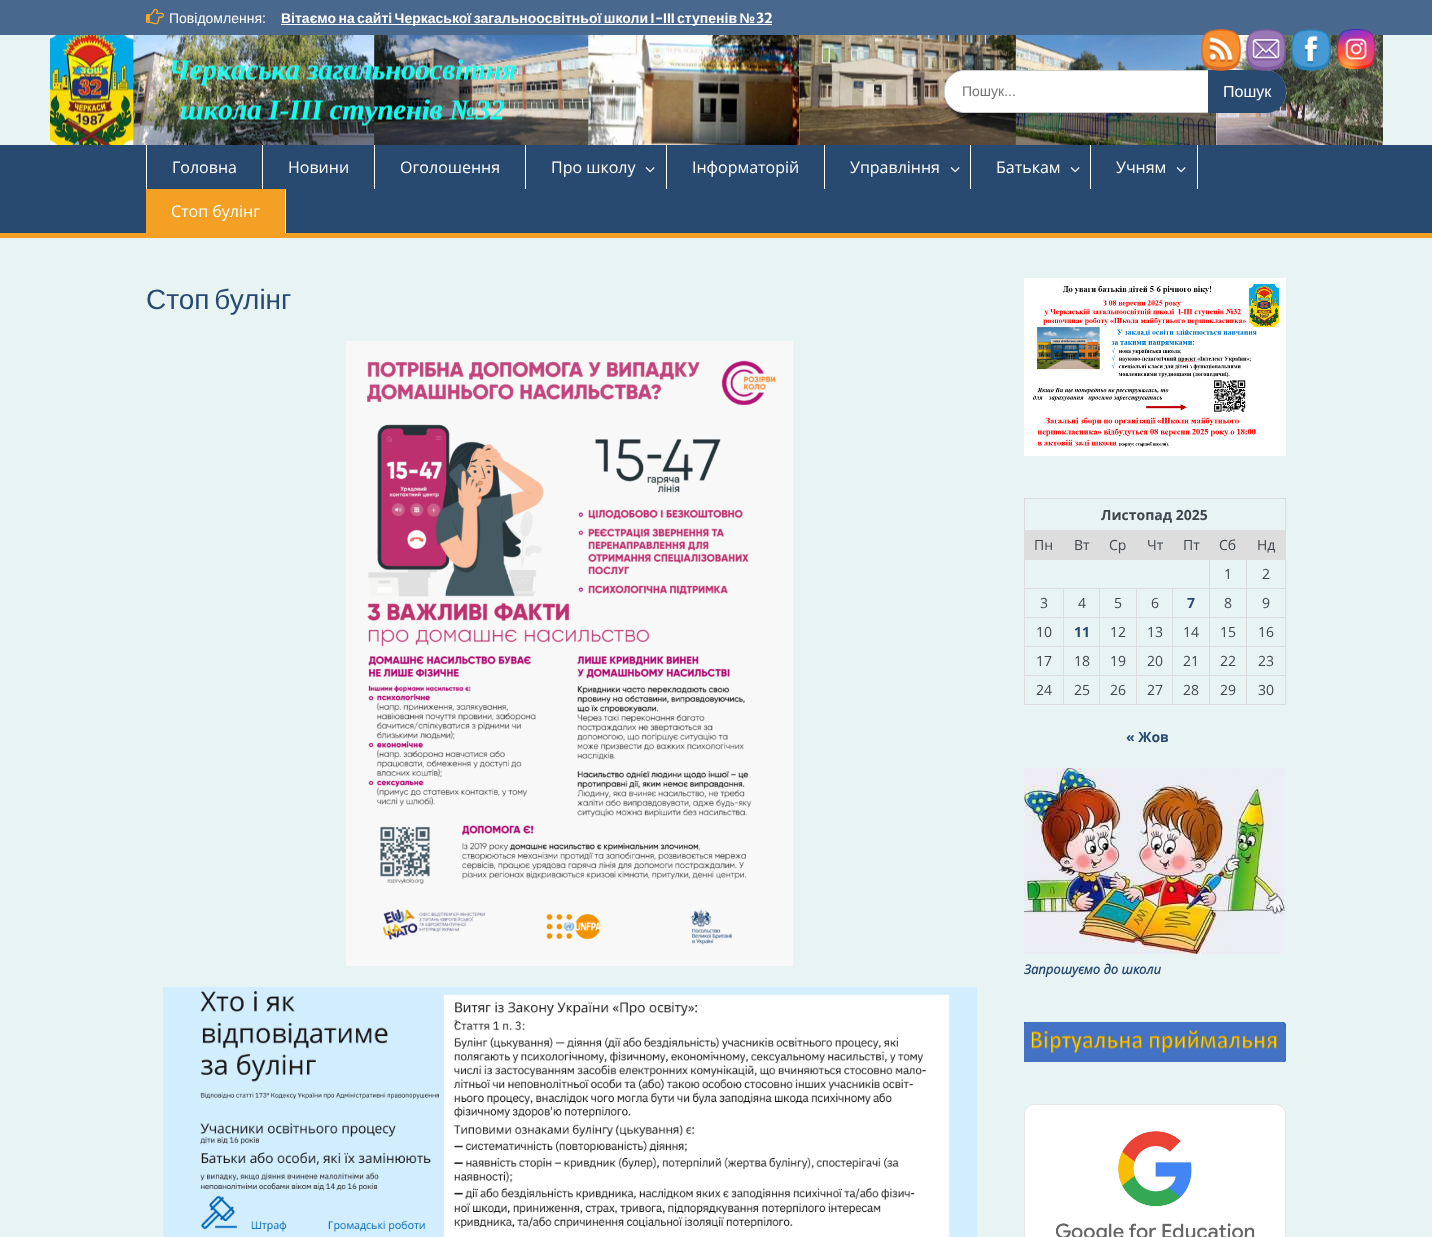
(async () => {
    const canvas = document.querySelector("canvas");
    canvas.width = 1432;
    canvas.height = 1237;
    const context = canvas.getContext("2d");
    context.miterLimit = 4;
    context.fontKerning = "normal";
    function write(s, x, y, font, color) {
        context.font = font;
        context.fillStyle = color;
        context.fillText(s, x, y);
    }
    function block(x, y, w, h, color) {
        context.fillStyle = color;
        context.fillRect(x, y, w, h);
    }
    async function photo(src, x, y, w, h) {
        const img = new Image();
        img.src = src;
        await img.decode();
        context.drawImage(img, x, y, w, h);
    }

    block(0, 0, 1432, 1237, "rgb(232, 244, 244)");
    block(0, 0, 1432, 35, "rgb(73, 104, 142)");
    await photo("media/1.png", 146, 8, 18, 17);
    write("Повідомлення:", 169, 23, "14px Liberation Sans", "rgb(255, 255, 255)");
    block(281, 24, 491, 1, "rgb(255, 255, 255)");
    context.wordSpacing = "-1.5px";
    write("Вітаємо на сайті Черкаської загальноосвітньої школи І", 281, 23, "bold 14px Liberation Sans", "rgb(255, 255, 255)");
    context.wordSpacing = "0px";
    write("-", 655, 23, "bold 14px Merriweather Sans", "rgb(255, 255, 255)");
    context.wordSpacing = "-1.5px";
    write("ІІІ ступенів №", 663, 23, "bold 14px Liberation Sans", "rgb(255, 255, 255)");
    context.wordSpacing = "0px";
    write("32", 756, 23, "bold 14px Merriweather Sans", "rgb(255, 255, 255)");
    await photo("media/2.png", 50, 35, 1333, 110);
    context.beginPath();
    context.roundRect(944.5, 70.5, 341, 42, 19.5);
    context.fill();
    context.strokeStyle = "rgb(204, 204, 204)";
    context.stroke();
    write("Пошук...", 962, 96, "14px Liberation Sans", "rgb(117, 117, 117)");
    context.fillStyle = "rgb(41, 74, 112)";
    context.beginPath();
    context.roundRect(1208, 70, 78, 43, [0, 20, 20, 0]);
    context.fill();
    write("Пошук", 1223, 97, "16px Liberation Sans", "rgb(255, 255, 255)");
    block(0, 145, 1432, 88, "rgb(41, 74, 112)");
    block(0, 233, 1432, 5, "rgb(244, 160, 36)");
    block(262, 145, 1, 44, "rgb(255, 255, 255)");
    block(146, 145, 1, 44, "rgb(255, 255, 255)");
    write("Головна", 172, 173, "16px Open Sans", "rgb(255, 255, 255)");
    block(374, 145, 1, 44, "rgb(255, 255, 255)");
    write("Новини", 288, 173, "16px Open Sans", "rgb(255, 255, 255)");
    block(525, 145, 1, 44, "rgb(255, 255, 255)");
    write("Оголошення", 400, 173, "16px Open Sans", "rgb(255, 255, 255)");
    block(666, 145, 1, 44, "rgb(255, 255, 255)");
    write("Про школу", 551, 173, "16px Open Sans", "rgb(255, 255, 255)");
    await photo("media/3.png", 645, 167, 10, 6);
    block(824, 145, 1, 44, "rgb(255, 255, 255)");
    write("Інформаторій", 692, 173, "16px Open Sans", "rgb(255, 255, 255)");
    block(970, 145, 1, 44, "rgb(255, 255, 255)");
    write("Управління", 850, 173, "16px Open Sans", "rgb(255, 255, 255)");
    await photo("media/3.png", 950, 167, 10, 6);
    block(1090, 145, 1, 44, "rgb(255, 255, 255)");
    write("Батькам", 996, 173, "16px Open Sans", "rgb(255, 255, 255)");
    await photo("media/3.png", 1070, 167, 10, 6);
    block(1197, 145, 1, 44, "rgb(255, 255, 255)");
    write("Учням", 1116, 173, "16px Open Sans", "rgb(255, 255, 255)");
    await photo("media/3.png", 1176, 167, 10, 6);
    block(146, 189, 139, 44, "rgb(244, 160, 36)");
    block(285, 189, 1, 44, "rgb(255, 255, 255)");
    write("Стоп булінг", 171, 217, "16px Open Sans", "rgb(255, 255, 255)");
    context.wordSpacing = "-3px";
    write("Стоп булінг", 146, 309, "28px Liberation Sans", "rgb(41, 74, 112)");
    await photo("media/4.png", 346, 341, 447, 625);
    await photo("media/5.png", 163, 987, 814, 250);
    await photo("media/6.png", 1024, 278, 262, 178);
    block(1024, 498, 262, 1, "rgb(221, 221, 221)");
    block(1285, 498, 1, 32, "rgb(221, 221, 221)");
    block(1024, 498, 1, 32, "rgb(221, 221, 221)");
    context.wordSpacing = "0px";
    write("Листопад 2025", 1101, 520, "bold 14px Open Sans", "rgb(64, 70, 77)");
    block(1024, 530, 262, 29, "rgb(221, 221, 221)");
    write("Пн", 1034, 550, "14px Open Sans", "rgb(64, 70, 77)");
    write("Вт", 1074, 550, "14px Open Sans", "rgb(64, 70, 77)");
    write("Ср", 1109, 550, "14px Open Sans", "rgb(64, 70, 77)");
    write("Чт", 1147, 550, "14px Open Sans", "rgb(64, 70, 77)");
    write("Пт", 1183, 550, "14px Open Sans", "rgb(64, 70, 77)");
    write("Сб", 1219, 550, "14px Open Sans", "rgb(64, 70, 77)");
    write("Нд", 1257, 550, "14px Open Sans", "rgb(64, 70, 77)");
    block(1246, 559, 40, 1, "rgb(221, 221, 221)");
    block(1246, 588, 40, 1, "rgb(221, 221, 221)");
    block(1246, 617, 40, 1, "rgb(221, 221, 221)");
    block(1246, 646, 40, 1, "rgb(221, 221, 221)");
    block(1246, 675, 40, 1, "rgb(221, 221, 221)");
    block(1285, 675, 1, 30, "rgb(221, 221, 221)");
    block(1246, 704, 40, 1, "rgb(221, 221, 221)");
    block(1246, 675, 1, 30, "rgb(221, 221, 221)");
    block(1209, 675, 38, 1, "rgb(221, 221, 221)");
    block(1246, 646, 1, 30, "rgb(221, 221, 221)");
    block(1209, 646, 38, 1, "rgb(221, 221, 221)");
    block(1246, 617, 1, 30, "rgb(221, 221, 221)");
    block(1209, 617, 38, 1, "rgb(221, 221, 221)");
    block(1246, 588, 1, 30, "rgb(221, 221, 221)");
    block(1209, 588, 38, 1, "rgb(221, 221, 221)");
    block(1246, 559, 1, 30, "rgb(221, 221, 221)");
    block(1209, 559, 38, 1, "rgb(221, 221, 221)");
    block(1209, 704, 38, 1, "rgb(221, 221, 221)");
    block(1209, 675, 1, 30, "rgb(221, 221, 221)");
    block(1172, 675, 38, 1, "rgb(221, 221, 221)");
    block(1209, 646, 1, 30, "rgb(221, 221, 221)");
    block(1172, 646, 38, 1, "rgb(221, 221, 221)");
    block(1209, 617, 1, 30, "rgb(221, 221, 221)");
    block(1172, 617, 38, 1, "rgb(221, 221, 221)");
    block(1209, 588, 1, 30, "rgb(221, 221, 221)");
    block(1172, 588, 38, 1, "rgb(221, 221, 221)");
    block(1209, 559, 1, 30, "rgb(221, 221, 221)");
    block(1024, 559, 186, 1, "rgb(221, 221, 221)");
    block(1172, 704, 38, 1, "rgb(221, 221, 221)");
    block(1172, 675, 1, 30, "rgb(221, 221, 221)");
    block(1136, 675, 37, 1, "rgb(221, 221, 221)");
    block(1172, 646, 1, 30, "rgb(221, 221, 221)");
    block(1136, 646, 37, 1, "rgb(221, 221, 221)");
    block(1172, 617, 1, 30, "rgb(221, 221, 221)");
    block(1136, 617, 37, 1, "rgb(221, 221, 221)");
    block(1172, 588, 1, 30, "rgb(221, 221, 221)");
    block(1136, 588, 37, 1, "rgb(221, 221, 221)");
    block(1136, 704, 37, 1, "rgb(221, 221, 221)");
    block(1136, 675, 1, 30, "rgb(221, 221, 221)");
    block(1099, 675, 38, 1, "rgb(221, 221, 221)");
    block(1136, 646, 1, 30, "rgb(221, 221, 221)");
    block(1099, 646, 38, 1, "rgb(221, 221, 221)");
    block(1136, 617, 1, 30, "rgb(221, 221, 221)");
    block(1099, 617, 38, 1, "rgb(221, 221, 221)");
    block(1136, 588, 1, 30, "rgb(221, 221, 221)");
    block(1099, 588, 38, 1, "rgb(221, 221, 221)");
    block(1099, 704, 38, 1, "rgb(221, 221, 221)");
    block(1099, 675, 1, 30, "rgb(221, 221, 221)");
    block(1063, 675, 37, 1, "rgb(221, 221, 221)");
    block(1099, 646, 1, 30, "rgb(221, 221, 221)");
    block(1063, 646, 37, 1, "rgb(221, 221, 221)");
    block(1099, 617, 1, 30, "rgb(221, 221, 221)");
    block(1063, 617, 37, 1, "rgb(221, 221, 221)");
    block(1099, 588, 1, 30, "rgb(221, 221, 221)");
    block(1063, 588, 37, 1, "rgb(221, 221, 221)");
    block(1063, 704, 37, 1, "rgb(221, 221, 221)");
    block(1063, 675, 1, 30, "rgb(221, 221, 221)");
    block(1024, 675, 40, 1, "rgb(221, 221, 221)");
    block(1063, 646, 1, 30, "rgb(221, 221, 221)");
    block(1024, 646, 40, 1, "rgb(221, 221, 221)");
    block(1063, 617, 1, 30, "rgb(221, 221, 221)");
    block(1024, 617, 40, 1, "rgb(221, 221, 221)");
    block(1063, 588, 1, 30, "rgb(221, 221, 221)");
    block(1024, 588, 40, 1, "rgb(221, 221, 221)");
    block(1024, 704, 40, 1, "rgb(221, 221, 221)");
    block(1024, 675, 1, 30, "rgb(221, 221, 221)");
    block(1024, 646, 1, 30, "rgb(221, 221, 221)");
    block(1024, 617, 1, 30, "rgb(221, 221, 221)");
    block(1024, 588, 1, 30, "rgb(221, 221, 221)");
    block(1024, 559, 1, 30, "rgb(221, 221, 221)");
    write("1", 1224, 579, "14px Open Sans", "rgb(64, 70, 77)");
    block(1285, 646, 1, 30, "rgb(221, 221, 221)");
    block(1285, 617, 1, 30, "rgb(221, 221, 221)");
    block(1285, 588, 1, 30, "rgb(221, 221, 221)");
    block(1285, 559, 1, 30, "rgb(221, 221, 221)");
    write("2", 1262, 579, "14px Open Sans", "rgb(64, 70, 77)");
    write("3", 1040, 608, "14px Open Sans", "rgb(64, 70, 77)");
    write("4", 1078, 608, "14px Open Sans", "rgb(64, 70, 77)");
    write("5", 1114, 608, "14px Open Sans", "rgb(64, 70, 77)");
    write("6", 1151, 608, "14px Open Sans", "rgb(64, 70, 77)");
    write("7", 1187, 608, "bold 14px Open Sans", "rgb(41, 74, 112)");
    write("8", 1224, 608, "14px Open Sans", "rgb(64, 70, 77)");
    write("9", 1262, 608, "14px Open Sans", "rgb(64, 70, 77)");
    write("10", 1036, 637, "14px Open Sans", "rgb(64, 70, 77)");
    write("11", 1074, 637, "bold 14px Open Sans", "rgb(41, 74, 112)");
    write("12", 1110, 637, "14px Open Sans", "rgb(64, 70, 77)");
    write("13", 1147, 637, "14px Open Sans", "rgb(64, 70, 77)");
    write("14", 1183, 637, "14px Open Sans", "rgb(64, 70, 77)");
    write("15", 1220, 637, "14px Open Sans", "rgb(64, 70, 77)");
    write("16", 1258, 637, "14px Open Sans", "rgb(64, 70, 77)");
    write("17", 1036, 666, "14px Open Sans", "rgb(64, 70, 77)");
    write("18", 1074, 666, "14px Open Sans", "rgb(64, 70, 77)");
    write("19", 1110, 666, "14px Open Sans", "rgb(64, 70, 77)");
    write("20", 1147, 666, "14px Open Sans", "rgb(64, 70, 77)");
    write("21", 1183, 666, "14px Open Sans", "rgb(64, 70, 77)");
    write("22", 1220, 666, "14px Open Sans", "rgb(64, 70, 77)");
    write("23", 1258, 666, "14px Open Sans", "rgb(64, 70, 77)");
    write("24", 1036, 695, "14px Open Sans", "rgb(64, 70, 77)");
    write("25", 1074, 695, "14px Open Sans", "rgb(64, 70, 77)");
    write("26", 1110, 695, "14px Open Sans", "rgb(64, 70, 77)");
    write("27", 1147, 695, "14px Open Sans", "rgb(64, 70, 77)");
    write("28", 1183, 695, "14px Open Sans", "rgb(64, 70, 77)");
    write("29", 1220, 695, "14px Open Sans", "rgb(64, 70, 77)");
    write("30", 1258, 695, "14px Open Sans", "rgb(64, 70, 77)");
    write("« Жов", 1126, 742, "bold 14px Open Sans", "rgb(41, 74, 112)");
    await photo("media/7.png", 1024, 768, 261, 186);
    write("Запрошуємо до школи", 1024, 974, "italic bold 13px Open Sans", "rgb(41, 74, 112)");
    await photo("media/8.png", 1024, 1022, 262, 40);
    await photo("media/9.png", 1024, 1104, 262, 133);
    await photo("media/10.png", 1201, 29, 40, 42);
    await photo("media/11.png", 1246, 29, 40, 42);
    await photo("media/12.png", 1291, 29, 40, 42);
    await photo("media/13.png", 1336, 29, 40, 40);
})();
